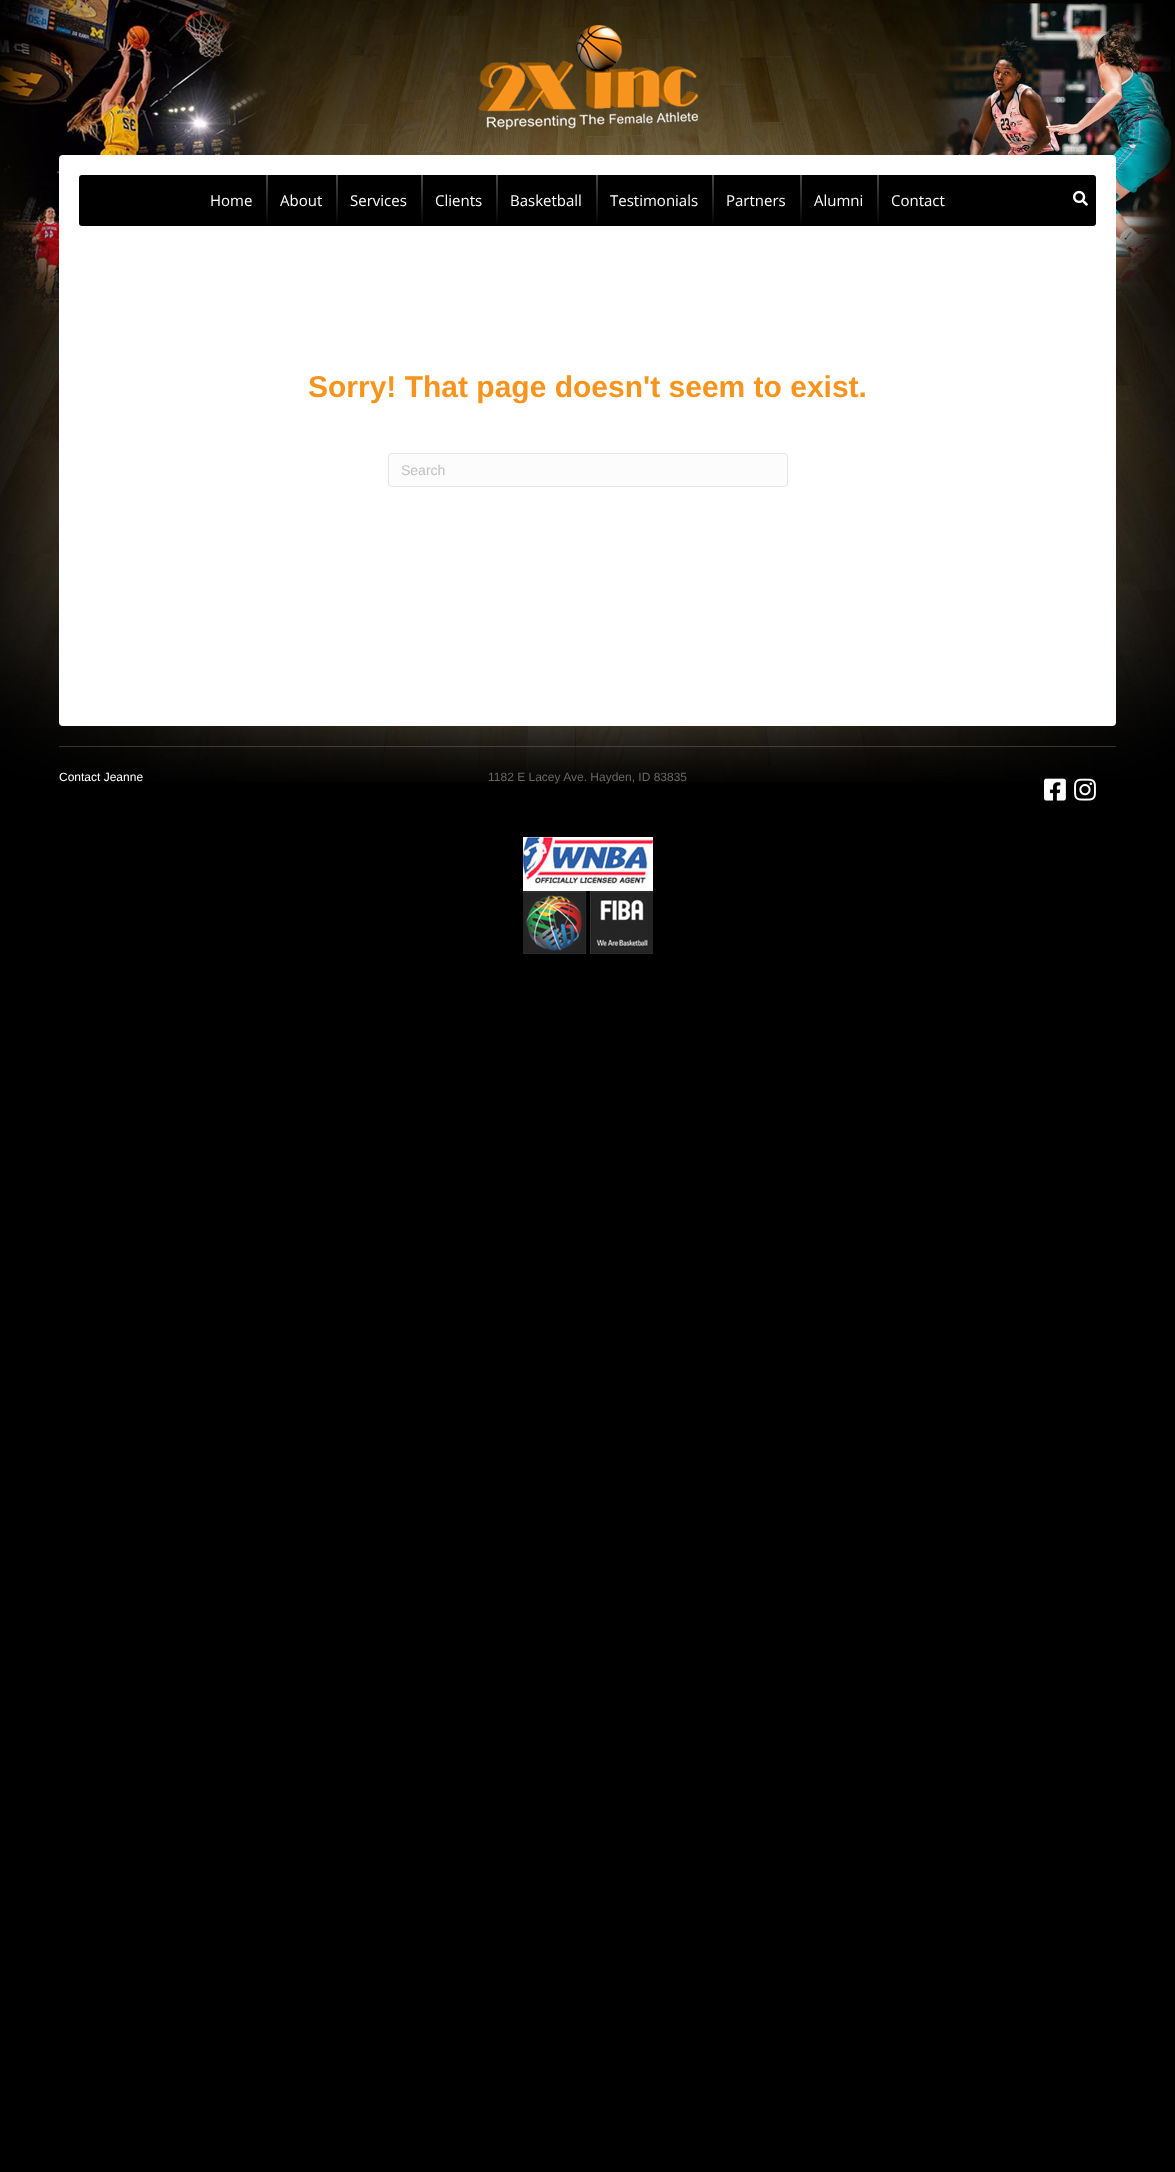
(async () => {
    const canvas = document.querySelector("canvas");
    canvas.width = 1175;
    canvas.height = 2172;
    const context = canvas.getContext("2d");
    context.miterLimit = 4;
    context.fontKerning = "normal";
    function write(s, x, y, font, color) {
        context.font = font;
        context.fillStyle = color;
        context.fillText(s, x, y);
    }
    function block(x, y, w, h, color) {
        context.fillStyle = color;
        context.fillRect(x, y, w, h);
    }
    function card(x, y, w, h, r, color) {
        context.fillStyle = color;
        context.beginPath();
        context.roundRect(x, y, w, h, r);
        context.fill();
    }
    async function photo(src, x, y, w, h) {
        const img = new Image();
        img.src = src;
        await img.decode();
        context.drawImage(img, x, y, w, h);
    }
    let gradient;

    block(0, 0, 1175, 2172, "rgb(0, 0, 0)");
    await photo("media/1.png", 0, 0, 1175, 782);
    await photo("media/2.png", 478, 25, 220, 105);
    context.fillStyle = "rgb(255, 255, 255)";
    context.beginPath();
    context.roundRect(59, 155, 1057, 71, [4, 4, 0, 0]);
    context.fill();
    card(79, 175, 1017, 51, 3, "rgb(0, 0, 0)");
    write("Home", 210, 206, "15px Open Sans", "rgb(255, 255, 255)");
    gradient = context.createLinearGradient(267, 226, 267, 175);
    gradient.addColorStop(0, "rgb(0, 0, 0)");
    gradient.addColorStop(1, "rgb(72, 72, 72)");
    context.fillStyle = gradient;
    context.fillRect(266, 175, 2, 51);
    write("About", 280, 206, "15px Open Sans", "rgb(255, 255, 255)");
    gradient = context.createLinearGradient(337, 226, 337, 175);
    gradient.addColorStop(0, "rgb(0, 0, 0)");
    gradient.addColorStop(1, "rgb(72, 72, 72)");
    context.fillStyle = gradient;
    context.fillRect(336, 175, 2, 51);
    write("Services", 350, 206, "15px Open Sans", "rgb(255, 255, 255)");
    gradient = context.createLinearGradient(422, 226, 422, 175);
    gradient.addColorStop(0, "rgb(0, 0, 0)");
    gradient.addColorStop(1, "rgb(72, 72, 72)");
    context.fillStyle = gradient;
    context.fillRect(421, 175, 2, 51);
    write("Clients", 435, 206, "15px Open Sans", "rgb(255, 255, 255)");
    gradient = context.createLinearGradient(497, 226, 497, 175);
    gradient.addColorStop(0, "rgb(0, 0, 0)");
    gradient.addColorStop(1, "rgb(72, 72, 72)");
    context.fillStyle = gradient;
    context.fillRect(496, 175, 2, 51);
    write("Basketball", 510, 206, "15px Open Sans", "rgb(255, 255, 255)");
    gradient = context.createLinearGradient(597, 226, 597, 175);
    gradient.addColorStop(0, "rgb(0, 0, 0)");
    gradient.addColorStop(1, "rgb(72, 72, 72)");
    context.fillStyle = gradient;
    context.fillRect(596, 175, 2, 51);
    write("Testimonials", 610, 206, "15px Open Sans", "rgb(255, 255, 255)");
    gradient = context.createLinearGradient(713, 226, 713, 175);
    gradient.addColorStop(0, "rgb(0, 0, 0)");
    gradient.addColorStop(1, "rgb(72, 72, 72)");
    context.fillStyle = gradient;
    context.fillRect(712, 175, 2, 51);
    write("Partners", 726, 206, "15px Open Sans", "rgb(255, 255, 255)");
    gradient = context.createLinearGradient(801, 226, 801, 175);
    gradient.addColorStop(0, "rgb(0, 0, 0)");
    gradient.addColorStop(1, "rgb(72, 72, 72)");
    context.fillStyle = gradient;
    context.fillRect(800, 175, 2, 51);
    write("Alumni", 814, 206, "15px Open Sans", "rgb(255, 255, 255)");
    gradient = context.createLinearGradient(878, 226, 878, 175);
    gradient.addColorStop(0, "rgb(0, 0, 0)");
    gradient.addColorStop(1, "rgb(72, 72, 72)");
    context.fillStyle = gradient;
    context.fillRect(877, 175, 2, 51);
    write("Contact", 891, 206, "15px Open Sans", "rgb(255, 255, 255)");
    await photo("media/3.png", 1073, 190, 15, 16);
    context.beginPath();
    context.roundRect(59, 226, 1057, 500, [0, 0, 4, 4]);
    context.fill();
    write("Sorry! That page doesn't seem to exist.", 308, 397, "bold 30px Liberation Sans", "rgb(247, 148, 29)");
    context.fillStyle = "rgb(252, 252, 252)";
    context.beginPath();
    context.roundRect(388.5, 453.5, 399, 33, 3.5);
    context.fill();
    context.strokeStyle = "rgb(230, 230, 230)";
    context.stroke();
    write("Search", 401, 475, "14px Liberation Sans", "rgb(192, 192, 192)");
    block(59, 746, 1057, 1, "rgba(102, 102, 102, 0.5)");
    write("Contact Jeanne", 59, 781, "12px Liberation Sans", "rgb(255, 255, 255)");
    write("1182 E Lacey Ave. Hayden, ID 83835", 488, 781, "12px Liberation Sans", "rgb(102, 102, 102)");
    await photo("media/4.png", 523, 837, 130, 54);
    await photo("media/5.png", 523, 891, 130, 63);
    await photo("media/6.png", 1044, 778, 22, 23);
    await photo("media/7.png", 1074, 778, 22, 23);
})();
